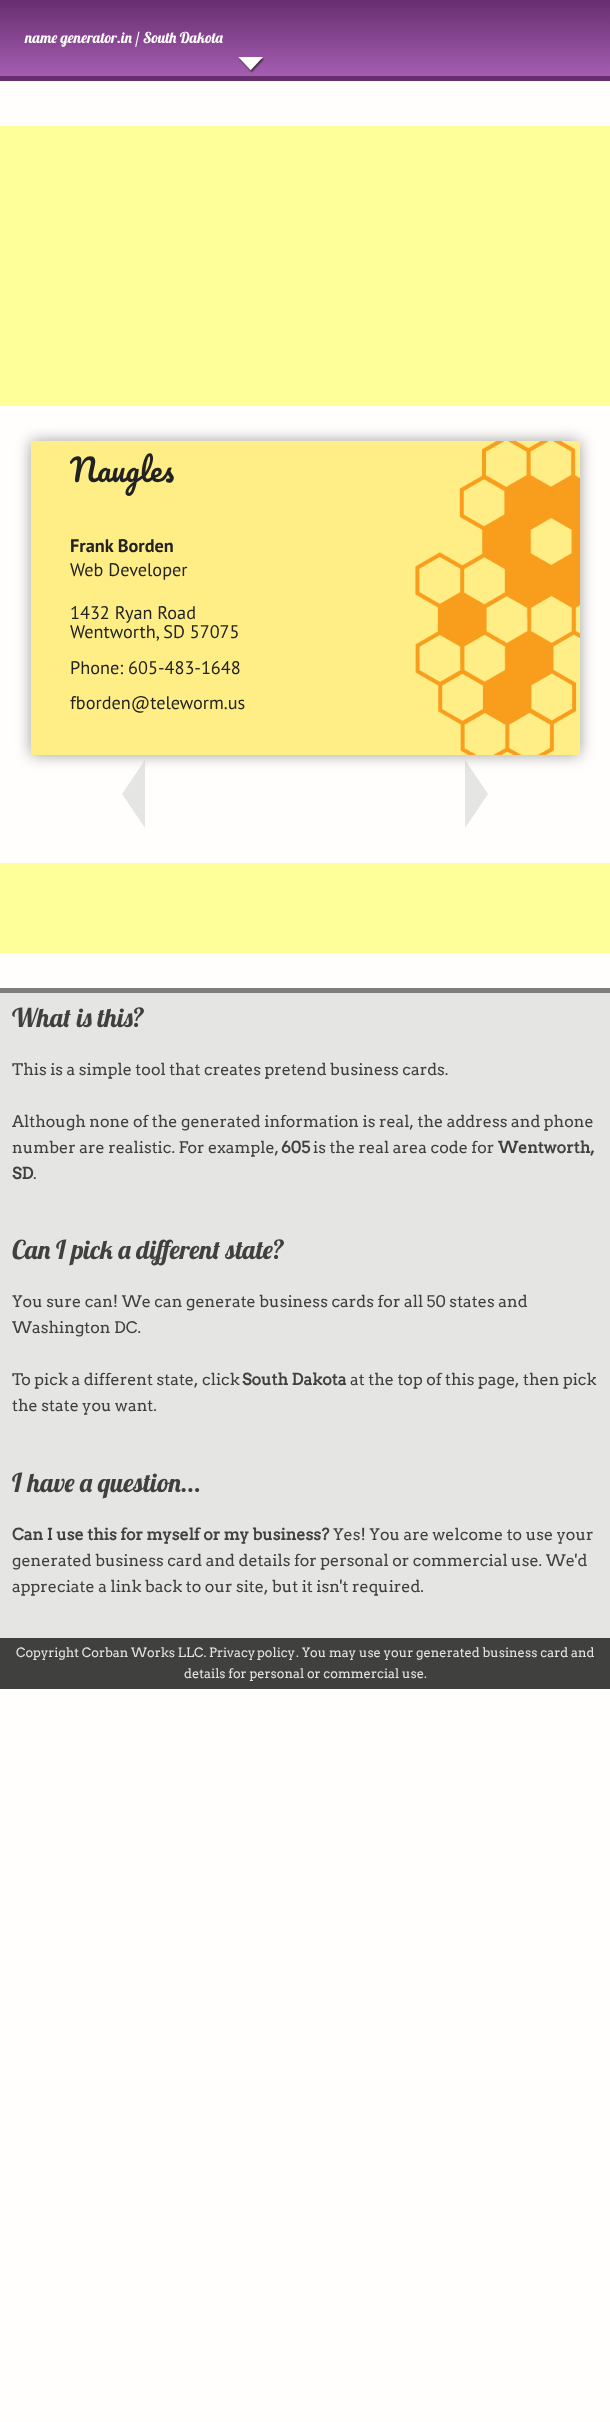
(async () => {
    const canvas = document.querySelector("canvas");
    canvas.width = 610;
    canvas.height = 2422;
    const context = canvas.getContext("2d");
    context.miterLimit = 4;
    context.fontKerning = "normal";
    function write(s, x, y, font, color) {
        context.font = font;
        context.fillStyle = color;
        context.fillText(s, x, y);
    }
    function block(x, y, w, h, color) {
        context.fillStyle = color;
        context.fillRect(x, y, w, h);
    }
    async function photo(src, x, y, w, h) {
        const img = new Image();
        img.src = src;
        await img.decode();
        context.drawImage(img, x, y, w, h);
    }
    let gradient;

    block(0, 0, 610, 2422, "rgb(255, 254, 252)");
    gradient = context.createLinearGradient(305, 0, 305, 76);
    gradient.addColorStop(0, "rgb(103, 45, 110)");
    gradient.addColorStop(1, "rgb(165, 94, 178)");
    context.fillStyle = gradient;
    context.fillRect(0, 0, 610, 76);
    block(0, 76, 610, 5, "rgb(103, 45, 110)");
    write("name generator.in / South Dakota", 25, 43, "15px Lobster", "rgb(255, 254, 252)");
    await photo("media/1.png", 238, 57, 27, 16);
    block(0, 126, 610, 280, "rgb(255, 255, 153)");
    context.fillStyle = "rgb(229, 229, 227)";
    context.beginPath();
    context.moveTo(145, 760);
    context.lineTo(145, 828);
    context.lineTo(122, 794);
    context.closePath();
    context.fill();
    context.beginPath();
    context.moveTo(465, 828);
    context.lineTo(465, 760);
    context.lineTo(488, 794);
    context.closePath();
    context.fill();
    context.fillStyle = "rgb(160, 160, 160)";
    context.filter = "blur(7.5px)";
    context.beginPath();
    context.rect(31, 441, 549, 314);
    context.fill();
    context.filter = "none";
    await photo("media/2.png", 31, 441, 549, 314);
    write("Naugles", 70, 482, "30.5px Pacifico", "rgb(34, 34, 34)");
    write("Frank Borden", 70, 552, "bold 18.25px PT Sans", "rgb(34, 34, 34)");
    write("Web Developer", 70, 576, "18.25px PT Sans", "rgb(34, 34, 34)");
    write("1432 Ryan Road", 70, 619, "18.25px PT Sans", "rgb(34, 34, 34)");
    write("Wentworth, SD 57075", 70, 638, "18.25px PT Sans", "rgb(34, 34, 34)");
    write("Phone: 605-483-1648", 70, 674, "18.25px PT Sans", "rgb(34, 34, 34)");
    write("fborden@teleworm.us", 70, 709, "18.25px PT Sans", "rgb(34, 34, 34)");
    block(0, 863, 610, 90, "rgb(255, 255, 153)");
    block(0, 993, 610, 645, "rgb(229, 229, 227)");
    block(0, 988, 610, 5, "rgb(127, 127, 126)");
    write("What is this?", 12, 1027, "26px Lobster", "rgb(64, 64, 63)");
    write("This is a simple tool that creates pretend business cards.", 12, 1075, "16px Arvo", "rgb(64, 64, 63)");
    write("Although none of the generated information is real, the address and phone", 12, 1127, "16px Arvo", "rgb(64, 64, 63)");
    write("number are realistic. For example,", 12, 1153, "16px Arvo", "rgb(64, 64, 63)");
    write("605", 281, 1153, "bold 16px Arvo", "rgb(64, 64, 63)");
    write("is the real area code for", 313, 1153, "16px Arvo", "rgb(64, 64, 63)");
    write("Wentworth,", 498, 1153, "bold 16px Arvo", "rgb(64, 64, 63)");
    write("SD", 12, 1179, "bold 16px Arvo", "rgb(64, 64, 63)");
    write(".", 33, 1179, "16px Arvo", "rgb(64, 64, 63)");
    write("Can I pick a different state?", 12, 1259, "26px Lobster", "rgb(64, 64, 63)");
    write("You sure can! We can generate business cards for all 50 states and", 12, 1307, "16px Arvo", "rgb(64, 64, 63)");
    write("Washington DC.", 12, 1333, "16px Arvo", "rgb(64, 64, 63)");
    write("To pick a different state, click", 12, 1385, "16px Arvo", "rgb(64, 64, 63)");
    write("South Dakota", 242, 1385, "bold 16px Arvo", "rgb(64, 64, 63)");
    write("at the top of this page, then pick", 350, 1385, "16px Arvo", "rgb(64, 64, 63)");
    write("the state you want.", 12, 1411, "16px Arvo", "rgb(64, 64, 63)");
    write("I have a question...", 12, 1492, "26px Lobster", "rgb(64, 64, 63)");
    write("Can I use this for myself or my business?", 12, 1540, "bold 16px Arvo", "rgb(64, 64, 63)");
    write("Yes! You are welcome to use your", 333, 1540, "16px Arvo", "rgb(64, 64, 63)");
    write("generated business card and details for personal or commercial use. We'd", 12, 1566, "16px Arvo", "rgb(64, 64, 63)");
    write("appreciate a link back to our site, but it isn't required.", 12, 1592, "16px Arvo", "rgb(64, 64, 63)");
    block(0, 1638, 610, 51, "rgb(64, 64, 63)");
    write("Copyright Corban Works LLC.", 16, 1657, "12.8px Arvo", "rgb(229, 229, 227)");
    context.wordSpacing = "-1px";
    write("Privacy policy", 209, 1657, "12.8px Arvo", "rgb(229, 229, 227)");
    context.wordSpacing = "0px";
    write(". You may use your generated business card and", 296, 1657, "12.8px Arvo", "rgb(229, 229, 227)");
    write("details for personal or commercial use.", 184, 1678, "12.8px Arvo", "rgb(229, 229, 227)");
})();
